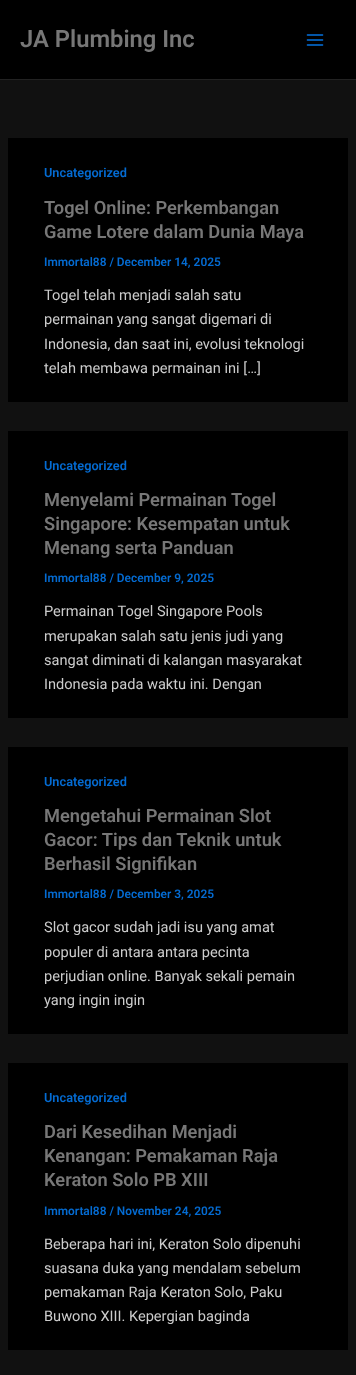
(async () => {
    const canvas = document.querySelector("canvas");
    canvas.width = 356;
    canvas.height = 1375;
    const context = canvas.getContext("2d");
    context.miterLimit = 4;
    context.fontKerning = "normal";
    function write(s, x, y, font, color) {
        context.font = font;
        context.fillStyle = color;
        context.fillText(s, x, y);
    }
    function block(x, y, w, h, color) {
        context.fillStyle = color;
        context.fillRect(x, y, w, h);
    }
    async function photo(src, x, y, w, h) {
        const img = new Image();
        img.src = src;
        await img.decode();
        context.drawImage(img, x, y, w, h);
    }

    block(0, 0, 356, 1375, "rgb(17, 17, 17)");
    block(0, 0, 356, 79, "rgb(0, 0, 0)");
    block(0, 79, 356, 1, "rgb(34, 34, 34)");
    write("JA Plumbing Inc", 20, 47, "600 23.75px Roboto", "rgb(119, 119, 119)");
    await photo("media/1.png", 306, 34, 18, 12);
    block(8, 138, 340, 264, "rgb(0, 0, 0)");
    write("Uncategorized", 44, 177, "600 12.75px Roboto", "rgb(4, 107, 210)");
    write("Togel Online: Perkembangan", 44, 214, "600 18.25px Roboto", "rgb(119, 119, 119)");
    write("Game Lotere dalam Dunia Maya", 44, 238, "600 18.25px Roboto", "rgb(119, 119, 119)");
    write("Immortal88 / December 14, 2025", 44, 266, "600 11.9px Roboto", "rgb(4, 107, 210)");
    write("Togel telah menjadi salah satu", 44, 300, "14.6px Roboto", "rgb(204, 204, 204)");
    write("permainan yang sangat digemari di", 44, 324, "14.6px Roboto", "rgb(204, 204, 204)");
    write("Indonesia, dan saat ini, evolusi teknologi", 44, 349, "14.6px Roboto", "rgb(204, 204, 204)");
    write("telah membawa permainan ini […]", 44, 373, "14.6px Roboto", "rgb(204, 204, 204)");
    block(8, 431, 340, 287, "rgb(0, 0, 0)");
    write("Uncategorized", 44, 470, "600 12.75px Roboto", "rgb(4, 107, 210)");
    write("Menyelami Permainan Togel", 44, 506, "600 18.25px Roboto", "rgb(119, 119, 119)");
    write("Singapore: Kesempatan untuk", 44, 530, "600 18.25px Roboto", "rgb(119, 119, 119)");
    write("Menang serta Panduan", 44, 554, "600 18.25px Roboto", "rgb(119, 119, 119)");
    write("Immortal88 / December 9, 2025", 44, 582, "600 11.9px Roboto", "rgb(4, 107, 210)");
    write("Permainan Togel Singapore Pools", 44, 616, "14.6px Roboto", "rgb(204, 204, 204)");
    write("merupakan salah satu jenis judi yang", 44, 641, "14.6px Roboto", "rgb(204, 204, 204)");
    write("sangat diminati di kalangan masyarakat", 44, 665, "14.6px Roboto", "rgb(204, 204, 204)");
    write("Indonesia pada waktu ini. Dengan", 44, 689, "14.6px Roboto", "rgb(204, 204, 204)");
    block(8, 747, 340, 287, "rgb(0, 0, 0)");
    write("Uncategorized", 44, 786, "600 12.75px Roboto", "rgb(4, 107, 210)");
    write("Mengetahui Permainan Slot", 44, 822, "600 18.25px Roboto", "rgb(119, 119, 119)");
    write("Gacor: Tips dan Teknik untuk", 44, 846, "600 18.25px Roboto", "rgb(119, 119, 119)");
    write("Berhasil Signifikan", 44, 870, "600 18.25px Roboto", "rgb(119, 119, 119)");
    write("Immortal88 / December 3, 2025", 44, 898, "600 11.9px Roboto", "rgb(4, 107, 210)");
    write("Slot gacor sudah jadi isu yang amat", 44, 932, "14.6px Roboto", "rgb(204, 204, 204)");
    write("populer di antara antara pecinta", 44, 957, "14.6px Roboto", "rgb(204, 204, 204)");
    write("perjudian online. Banyak sekali pemain", 44, 981, "14.6px Roboto", "rgb(204, 204, 204)");
    write("yang ingin ingin", 44, 1005, "14.6px Roboto", "rgb(204, 204, 204)");
    block(8, 1063, 340, 287, "rgb(0, 0, 0)");
    write("Uncategorized", 44, 1102, "600 12.75px Roboto", "rgb(4, 107, 210)");
    write("Dari Kesedihan Menjadi", 44, 1138, "600 18.25px Roboto", "rgb(119, 119, 119)");
    write("Kenangan: Pemakaman Raja", 44, 1162, "600 18.25px Roboto", "rgb(119, 119, 119)");
    write("Keraton Solo PB XIII", 44, 1186, "600 18.25px Roboto", "rgb(119, 119, 119)");
    write("Immortal88 / November 24, 2025", 44, 1215, "600 11.9px Roboto", "rgb(4, 107, 210)");
    write("Beberapa hari ini, Keraton Solo dipenuhi", 44, 1249, "14.6px Roboto", "rgb(204, 204, 204)");
    write("suasana duka yang mendalam sebelum", 44, 1273, "14.6px Roboto", "rgb(204, 204, 204)");
    write("pemakaman Raja Keraton Solo, Paku", 44, 1297, "14.6px Roboto", "rgb(204, 204, 204)");
    write("Buwono XIII. Kepergian baginda", 44, 1321, "14.6px Roboto", "rgb(204, 204, 204)");
})();
